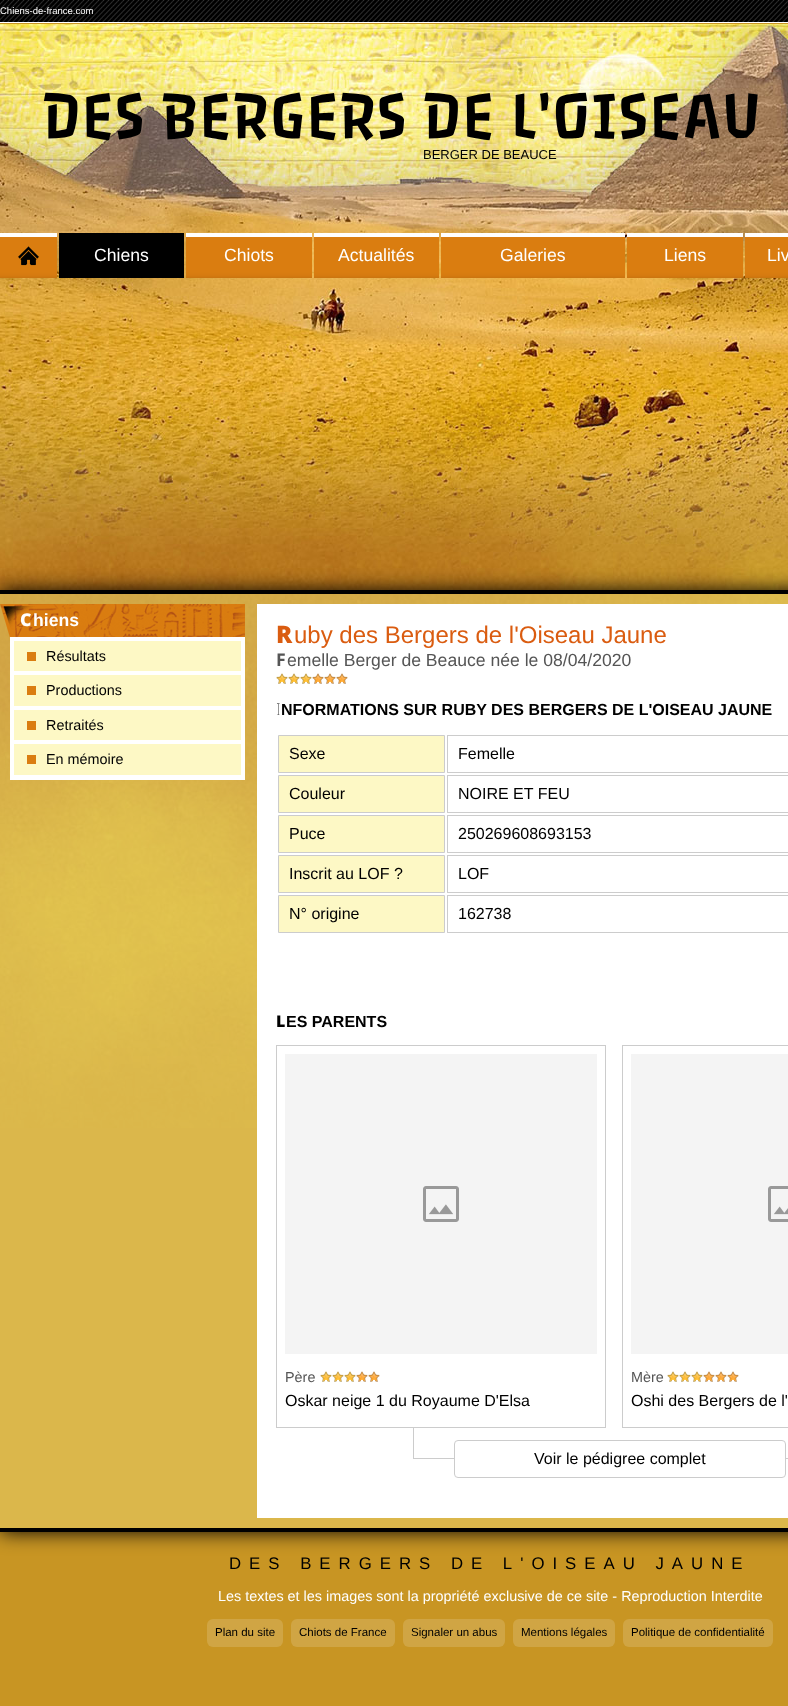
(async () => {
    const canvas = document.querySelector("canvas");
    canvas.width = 788;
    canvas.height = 1706;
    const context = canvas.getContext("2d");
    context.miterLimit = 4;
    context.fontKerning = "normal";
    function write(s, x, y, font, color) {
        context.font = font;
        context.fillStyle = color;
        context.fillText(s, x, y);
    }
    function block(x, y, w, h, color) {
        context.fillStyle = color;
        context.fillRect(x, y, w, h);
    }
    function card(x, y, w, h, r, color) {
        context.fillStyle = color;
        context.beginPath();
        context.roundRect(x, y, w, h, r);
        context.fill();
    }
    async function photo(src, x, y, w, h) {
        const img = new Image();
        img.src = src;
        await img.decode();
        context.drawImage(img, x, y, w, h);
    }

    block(0, 0, 788, 1706, "rgb(200, 149, 35)");
    await photo("media/1.png", 0, 24, 788, 1104);
    block(0, 0, 788, 22, "rgb(0, 0, 0)");
    await photo("media/2.png", 0, 0, 788, 22);
    block(0, 22, 788, 1, "rgb(255, 255, 255)");
    write("Chiens-de-france.com", 0, 14, "9.5px Liberation Sans", "rgb(255, 255, 255)");
    write("DES BERGERS DE L'OISEAU", 42, 138, "70px Passero One", "rgb(0, 0, 0)");
    write("BERGER DE BEAUCE", 423, 159, "13px Liberation Sans", "rgb(0, 0, 0)");
    block(0, 233, 57, 4, "rgb(255, 255, 255)");
    await photo("media/3.png", 0, 237, 57, 41);
    await photo("media/4.png", 18, 246, 21, 20);
    block(59, 233, 125, 45, "rgb(0, 0, 0)");
    write("Chiens", 94, 261, "17.6px Liberation Sans", "rgb(255, 255, 255)");
    block(186, 233, 126, 4, "rgb(255, 255, 255)");
    await photo("media/5.png", 186, 237, 126, 41);
    write("Chiots", 224, 261, "17.6px Liberation Sans", "rgb(255, 255, 255)");
    block(314, 233, 125, 4, "rgb(255, 255, 255)");
    await photo("media/6.png", 314, 237, 125, 41);
    write("Actualités", 338, 261, "17.6px Liberation Sans", "rgb(255, 255, 255)");
    block(441, 233, 184, 4, "rgb(255, 255, 255)");
    await photo("media/7.png", 441, 237, 184, 41);
    write("Galeries", 500, 261, "17.6px Liberation Sans", "rgb(255, 255, 255)");
    block(627, 233, 116, 4, "rgb(255, 255, 255)");
    await photo("media/8.png", 627, 237, 116, 41);
    write("Liens", 664, 261, "17.6px Liberation Sans", "rgb(255, 255, 255)");
    block(745, 233, 43, 4, "rgb(255, 255, 255)");
    await photo("media/9.png", 745, 237, 43, 41);
    write("Liv", 767, 261, "17.6px Liberation Sans", "rgb(255, 255, 255)");
    context.save();
    context.beginPath();
    context.moveTo(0, 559);
    context.lineTo(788, 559);
    context.lineTo(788, 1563);
    context.lineTo(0, 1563);
    context.closePath();
    context.moveTo(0, 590);
    context.lineTo(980, 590);
    context.lineTo(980, 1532);
    context.lineTo(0, 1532);
    context.closePath();
    context.clip("evenodd");
    context.fillStyle = "rgb(0, 0, 0)";
    context.filter = "blur(10px)";
    context.beginPath();
    context.rect(0, 590, 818, 942);
    context.fill();
    context.filter = "none";
    context.restore();
    block(0, 594, 788, 934, "rgba(232, 206, 101, 0.6)");
    block(0, 590, 788, 4, "rgb(0, 0, 0)");
    block(0, 1528, 788, 4, "rgb(0, 0, 0)");
    await photo("media/10.png", 10, 604, 235, 33);
    await photo("media/11.png", 0, 604, 10, 33);
    write("C", 20, 626, "900 17.6px Noto Sans", "rgb(255, 255, 255)");
    write("hiens", 33, 626, "bold 17.6px Liberation Sans", "rgb(255, 255, 255)");
    block(10, 637, 235, 143, "rgb(255, 255, 255)");
    block(14, 641, 227, 30, "rgb(253, 248, 197)");
    block(27, 652, 9, 9, "rgb(218, 125, 16)");
    write("Résultats", 46, 661, "14.4px Liberation Sans", "rgb(0, 0, 0)");
    block(14, 675, 227, 31, "rgb(253, 248, 197)");
    block(27, 686, 9, 9, "rgb(218, 125, 16)");
    write("Productions", 46, 695, "14.4px Liberation Sans", "rgb(0, 0, 0)");
    block(14, 710, 227, 30, "rgb(253, 248, 197)");
    block(27, 721, 9, 9, "rgb(218, 125, 16)");
    write("Retraités", 46, 730, "14.4px Liberation Sans", "rgb(0, 0, 0)");
    block(14, 744, 227, 31, "rgb(253, 248, 197)");
    block(27, 755, 9, 9, "rgb(218, 125, 16)");
    write("En mémoire", 46, 764, "14.4px Liberation Sans", "rgb(0, 0, 0)");
    block(257, 604, 531, 914, "rgb(255, 255, 255)");
    write("R", 276, 643, "900 24px Noto Sans", "rgb(218, 92, 16)");
    write("uby des Bergers de l'Oiseau Jaune", 294, 643, "24px Liberation Sans", "rgb(218, 92, 16)");
    write("F", 276, 666, "bold 17.6px Noto Sans", "rgb(85, 85, 85)");
    write("emelle Berger de Beauce née le 08/04/2020", 287, 666, "17.6px Liberation Sans", "rgb(85, 85, 85)");
    await photo("media/12.png", 276, 673, 72, 11);
    write("I", 276, 715, "100 16px Noto Sans", "rgb(0, 0, 0)");
    write("NFORMATIONS SUR RUBY DES BERGERS DE L'OISEAU JAUNE", 281, 715, "bold 16px Liberation Sans", "rgb(0, 0, 0)");
    context.fillStyle = "rgb(253, 248, 197)";
    context.beginPath();
    context.rect(278.5, 735.5, 166, 37);
    context.fill();
    context.strokeStyle = "rgb(204, 204, 204)";
    context.stroke();
    write("Sexe", 289, 759, "16px Liberation Sans", "rgb(0, 0, 0)");
    context.strokeRect(447.5, 735.5, 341, 37);
    write("Femelle", 458, 759, "16px Liberation Sans", "rgb(0, 0, 0)");
    context.fillStyle = "rgb(253, 248, 197)";
    context.beginPath();
    context.rect(278.5, 775.5, 166, 37);
    context.fill();
    context.stroke();
    write("Couleur", 289, 799, "16px Liberation Sans", "rgb(0, 0, 0)");
    context.strokeRect(447.5, 775.5, 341, 37);
    write("NOIRE ET FEU", 458, 799, "16px Liberation Sans", "rgb(0, 0, 0)");
    context.fillStyle = "rgb(253, 248, 197)";
    context.beginPath();
    context.rect(278.5, 815.5, 166, 37);
    context.fill();
    context.stroke();
    write("Puce", 289, 839, "16px Liberation Sans", "rgb(0, 0, 0)");
    context.strokeRect(447.5, 815.5, 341, 37);
    write("250269608693153", 458, 839, "16px Liberation Sans", "rgb(0, 0, 0)");
    context.fillStyle = "rgb(253, 248, 197)";
    context.beginPath();
    context.rect(278.5, 855.5, 166, 37);
    context.fill();
    context.stroke();
    write("Inscrit au LOF ?", 289, 879, "16px Liberation Sans", "rgb(0, 0, 0)");
    context.strokeRect(447.5, 855.5, 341, 37);
    write("LOF", 458, 879, "16px Liberation Sans", "rgb(0, 0, 0)");
    context.fillStyle = "rgb(253, 248, 197)";
    context.beginPath();
    context.rect(278.5, 895.5, 166, 37);
    context.fill();
    context.stroke();
    write("N° origine", 289, 919, "16px Liberation Sans", "rgb(0, 0, 0)");
    context.strokeRect(447.5, 895.5, 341, 37);
    write("162738", 458, 919, "16px Liberation Sans", "rgb(0, 0, 0)");
    write("L", 276, 1027, "900 16px Noto Sans", "rgb(0, 0, 0)");
    write("ES PARENTS", 286, 1027, "bold 16px Liberation Sans", "rgb(0, 0, 0)");
    context.strokeRect(276.5, 1045.5, 329, 382);
    block(285, 1054, 312, 300, "rgb(244, 244, 244)");
    await photo("media/13.png", 423, 1186, 36, 36);
    write("Père", 285, 1382, "14.4px Liberation Sans", "rgb(85, 85, 85)");
    await photo("media/14.png", 320, 1371, 60, 11);
    write("Oskar neige 1 du Royaume D'Elsa", 285, 1406, "16px Liberation Sans", "rgb(0, 0, 0)");
    context.strokeRect(622.5, 1045.5, 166, 382);
    block(631, 1054, 157, 300, "rgb(244, 244, 244)");
    await photo("media/15.png", 768, 1186, 20, 36);
    write("Mère", 631, 1382, "14.4px Liberation Sans", "rgb(85, 85, 85)");
    await photo("media/12.png", 667, 1371, 72, 11);
    write("Oshi des Bergers de l'", 631, 1406, "16px Liberation Sans", "rgb(0, 0, 0)");
    block(413, 1458, 375, 1, "rgb(204, 204, 204)");
    block(413, 1428, 1, 31, "rgb(204, 204, 204)");
    context.fillStyle = "rgb(255, 255, 255)";
    context.beginPath();
    context.roundRect(454.5, 1440.5, 331, 37, 3.5);
    context.fill();
    context.stroke();
    write("Voir le pédigree complet", 534, 1464, "16px Liberation Sans", "rgb(0, 0, 0)");
    context.letterSpacing = "8px";
    write("DES BERGERS DE L'OISEAU JAUNE", 229, 1569, "16.8px Liberation Sans", "rgb(0, 0, 0)");
    context.letterSpacing = "0px";
    write("Les textes et les images sont la propriété exclusive de ce site - Reproduction Interdite", 218, 1601, "14.4px Liberation Sans", "rgb(255, 255, 255)");
    card(207, 1619, 76, 28, 6, "rgb(208, 165, 68)");
    write("Plan du site", 215, 1636, "11.5px Liberation Sans", "rgb(0, 0, 0)");
    card(291, 1619, 104, 28, 6, "rgb(208, 165, 68)");
    write("Chiots de France", 299, 1636, "11.5px Liberation Sans", "rgb(0, 0, 0)");
    card(403, 1619, 102, 28, 6, "rgb(208, 165, 68)");
    write("Signaler un abus", 411, 1636, "11.5px Liberation Sans", "rgb(0, 0, 0)");
    card(513, 1619, 102, 28, 6, "rgb(208, 165, 68)");
    write("Mentions légales", 521, 1636, "11.5px Liberation Sans", "rgb(0, 0, 0)");
    card(623, 1619, 150, 28, 6, "rgb(208, 165, 68)");
    write("Politique de confidentialité", 631, 1636, "11.5px Liberation Sans", "rgb(0, 0, 0)");
})();
